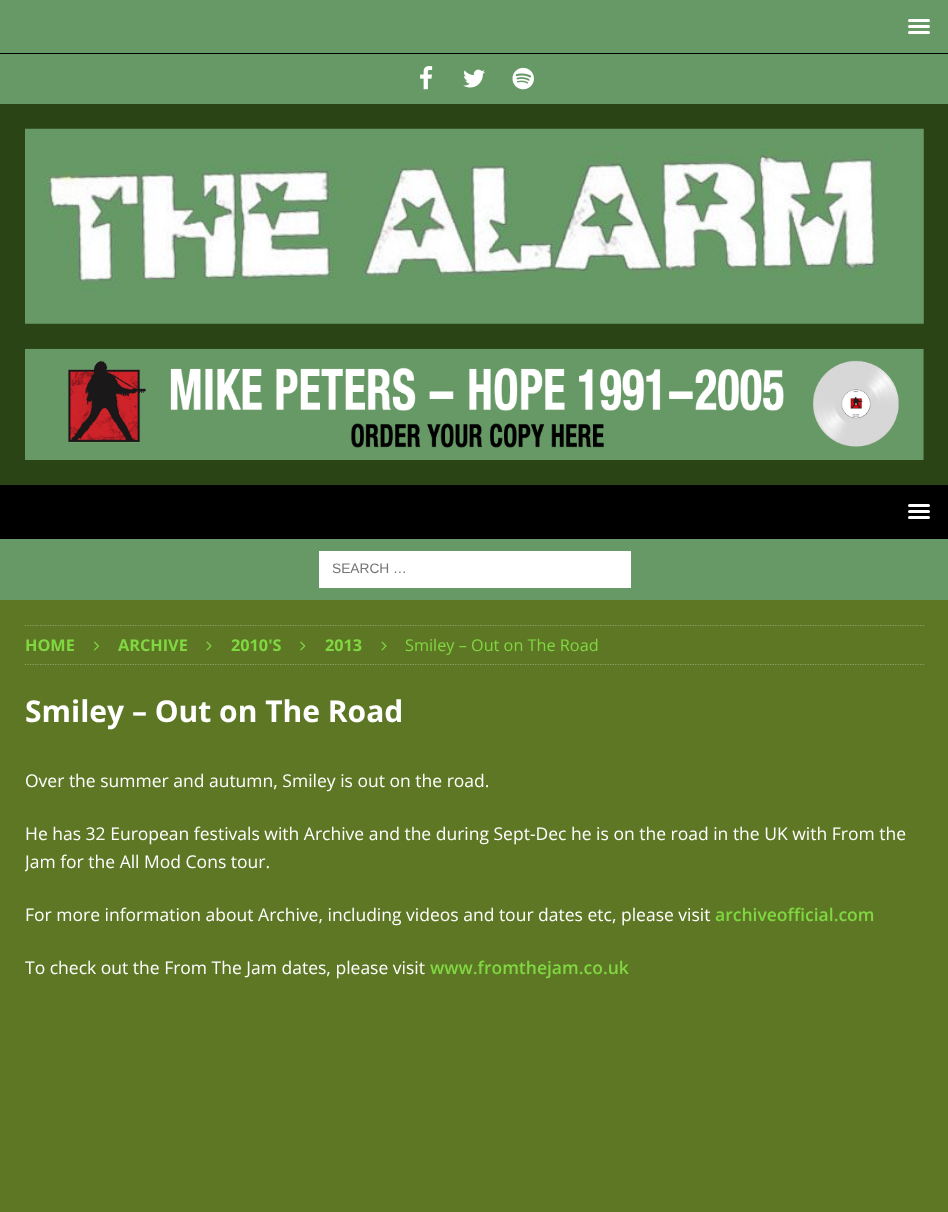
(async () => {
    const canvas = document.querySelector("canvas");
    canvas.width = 948;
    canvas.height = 1212;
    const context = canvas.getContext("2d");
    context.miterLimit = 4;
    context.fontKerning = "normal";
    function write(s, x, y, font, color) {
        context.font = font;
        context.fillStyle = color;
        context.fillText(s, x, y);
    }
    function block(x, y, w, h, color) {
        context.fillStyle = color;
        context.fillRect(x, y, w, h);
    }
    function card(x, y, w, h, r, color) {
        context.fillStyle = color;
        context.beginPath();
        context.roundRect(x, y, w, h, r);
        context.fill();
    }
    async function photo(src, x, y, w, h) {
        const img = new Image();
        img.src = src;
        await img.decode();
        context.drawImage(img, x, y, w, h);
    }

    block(0, 0, 948, 1212, "rgb(102, 153, 102)");
    block(0, 53, 948, 1, "rgb(0, 0, 0)");
    card(908, 19, 22, 3, 1.5, "rgb(255, 255, 255)");
    card(908, 25, 22, 3, 1.5, "rgb(255, 255, 255)");
    card(908, 31, 22, 3, 1.5, "rgb(255, 255, 255)");
    await photo("media/1.png", 420, 66, 13, 24);
    await photo("media/2.png", 463, 69, 22, 19);
    await photo("media/3.png", 512, 67, 22, 23);
    block(0, 104, 948, 381, "rgb(42, 68, 21)");
    await photo("media/4.png", 25, 128, 899, 196);
    await photo("media/5.png", 25, 348, 899, 112);
    block(0, 485, 948, 54, "rgb(0, 0, 0)");
    card(908, 504, 22, 3, 1.5, "rgb(255, 255, 255)");
    card(908, 510, 22, 3, 1.5, "rgb(255, 255, 255)");
    card(908, 516, 22, 3, 1.5, "rgb(255, 255, 255)");
    block(319, 551, 312, 37, "rgb(255, 255, 255)");
    write("SEARCH …", 332, 573, "13.75px Liberation Sans", "rgb(117, 117, 117)");
    block(0, 600, 948, 612, "rgb(93, 119, 37)");
    context.save();
    context.beginPath();
    context.rect(25, 625, 899, 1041);
    context.clip();
    context.beginPath();
    context.moveTo(25, 625.5);
    context.lineTo(924, 625.5);
    context.strokeStyle = "rgb(142, 160, 102)";
    context.lineWidth = 1.2;
    context.setLineDash([1.25, 1.25]);
    context.stroke();
    context.restore();
    context.beginPath();
    context.moveTo(25, 664.5);
    context.lineTo(924, 664.5);
    context.strokeStyle = "rgb(142, 160, 102)";
    context.lineWidth = 1.2;
    context.setLineDash([1.25, 1.25]);
    context.stroke();
    write("HOME", 25, 651, "bold 16.25px Open Sans", "rgb(129, 215, 66)");
    await photo("media/6.png", 94, 641, 5, 10);
    write("ARCHIVE", 118, 651, "bold 16.25px Open Sans", "rgb(129, 215, 66)");
    await photo("media/7.png", 206, 641, 6, 10);
    write("2010'S", 231, 651, "bold 16.25px Open Sans", "rgb(129, 215, 66)");
    await photo("media/8.png", 300, 641, 6, 10);
    write("2013", 325, 651, "bold 16.25px Open Sans", "rgb(129, 215, 66)");
    await photo("media/7.png", 381, 641, 6, 10);
    write("Smiley – Out on The Road", 405, 651, "16.25px Open Sans", "rgb(129, 215, 66)");
    write("Smiley – Out on The Road", 25, 722, "bold 30px Open Sans", "rgb(255, 255, 255)");
    write("Over the summer and autumn, Smiley is out on the road.", 25, 787, "17.5px Open Sans", "rgb(255, 255, 255)");
    write("He has 32 European festivals with Archive and the during Sept-Dec he is on the road in the UK with From the", 25, 840, "17.5px Open Sans", "rgb(255, 255, 255)");
    context.save();
    context.beginPath();
    context.rect(25, 625, 899, 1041);
    context.clip();
    write("Jam for the All Mod Cons tour.", 25, 868, "17.5px Open Sans", "rgb(255, 255, 255)");
    context.restore();
    write("For more information about Archive, including videos and tour dates etc, please visit", 25, 921, "17.5px Open Sans", "rgb(255, 255, 255)");
    write("archiveofficial.com", 715, 921, "600 17.5px Open Sans", "rgb(129, 215, 66)");
    write("To check out the From The Jam dates, please visit", 25, 974, "17.5px Open Sans", "rgb(255, 255, 255)");
    write("www.fromthejam.co.uk", 430, 974, "600 17.5px Open Sans", "rgb(129, 215, 66)");
})();
